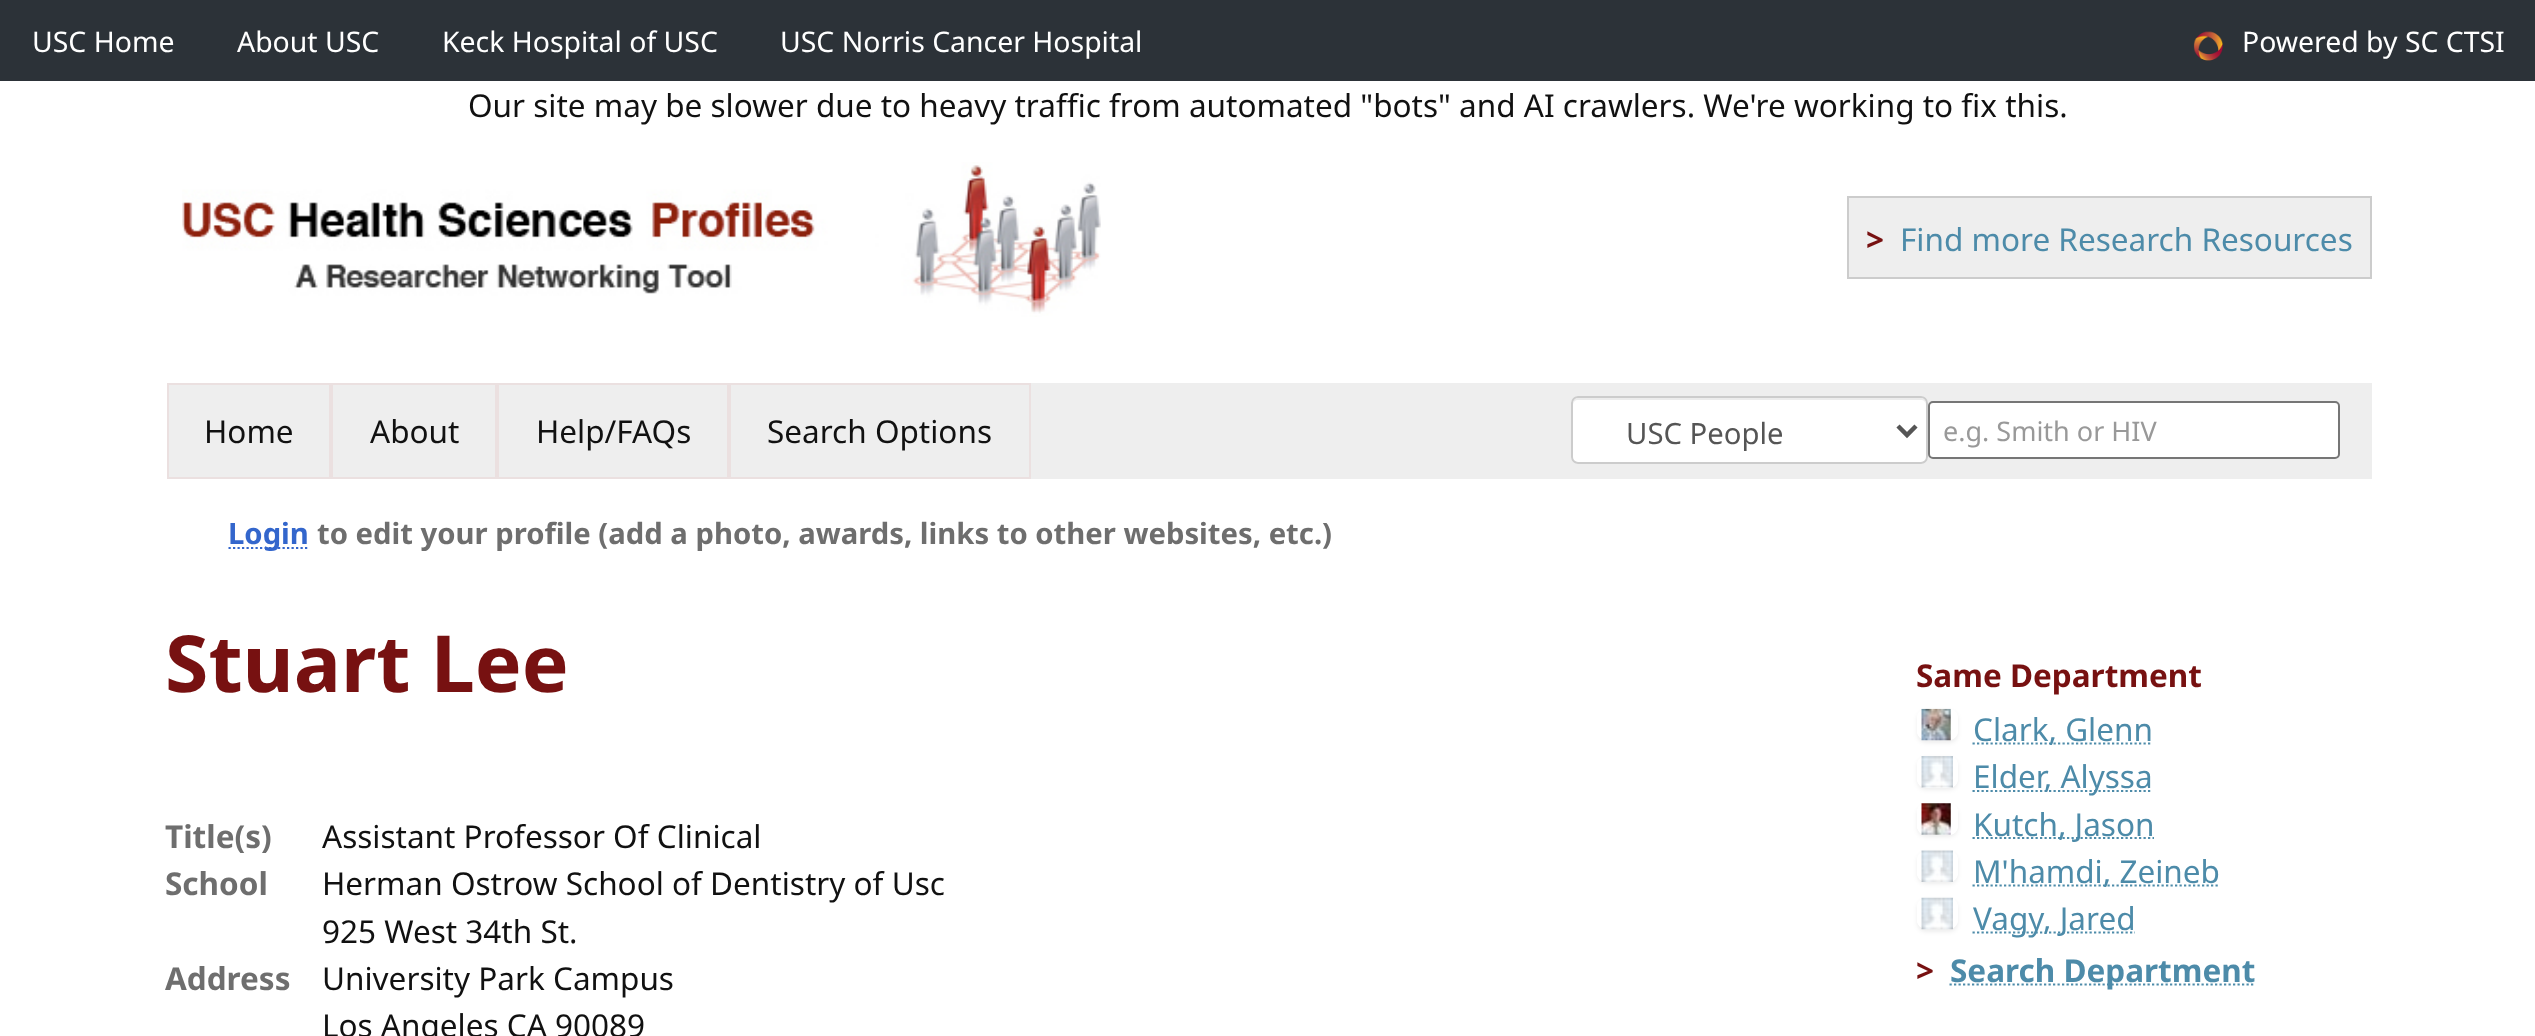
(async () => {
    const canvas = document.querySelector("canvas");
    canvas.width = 2535;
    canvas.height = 1036;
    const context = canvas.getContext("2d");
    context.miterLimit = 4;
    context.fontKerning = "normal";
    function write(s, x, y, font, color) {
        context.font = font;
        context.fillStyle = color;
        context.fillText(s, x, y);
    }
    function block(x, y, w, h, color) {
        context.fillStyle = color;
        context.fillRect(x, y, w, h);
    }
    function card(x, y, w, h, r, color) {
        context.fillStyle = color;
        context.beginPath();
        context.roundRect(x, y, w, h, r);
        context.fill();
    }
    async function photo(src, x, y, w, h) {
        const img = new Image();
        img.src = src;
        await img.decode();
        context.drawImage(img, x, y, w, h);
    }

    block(0, 0, 2535, 1036, "rgb(255, 255, 255)");
    block(0, 0, 2535, 81, "rgb(44, 50, 56)");
    write("USC Home", 32, 52, "28.4px Noto Sans", "rgb(255, 255, 255)");
    write("About USC", 237, 52, "28.4px Noto Sans", "rgb(255, 255, 255)");
    write("Keck Hospital of USC", 442, 52, "28.4px Noto Sans", "rgb(255, 255, 255)");
    write("USC Norris Cancer Hospital", 780, 52, "28.4px Noto Sans", "rgb(255, 255, 255)");
    await photo("media/1.png", 2193, 31, 30, 30);
    write("Powered by SC CTSI", 2242, 52, "28.4px Noto Sans", "rgb(255, 255, 255)");
    write("Our site may be slower due to heavy traffic from automated \"bots\" and AI crawlers. We're working to fix this.", 468, 117, "31.5px Noto Sans", "rgb(17, 17, 17)");
    await photo("media/2.png", 182, 162, 919, 155);
    context.fillStyle = "rgb(238, 238, 238)";
    context.beginPath();
    context.rect(1848, 197, 523, 81);
    context.fill();
    context.strokeStyle = "rgb(204, 204, 204)";
    context.lineWidth = 2;
    context.stroke();
    write(">", 1866, 251, "bold 31.5px Noto Sans", "rgb(119, 17, 17)");
    write("Find more Research Resources", 1900, 251, "31.5px Noto Sans", "rgb(77, 139, 169)");
    block(169, 383, 2203, 96, "rgb(238, 238, 238)");
    context.strokeStyle = "rgb(235, 224, 224)";
    context.strokeRect(168, 384, 162, 94);
    write("Home", 204, 443, "31.5px Noto Sans", "rgb(17, 17, 17)");
    context.strokeRect(332, 384, 164, 94);
    write("About", 370, 443, "31.5px Noto Sans", "rgb(17, 17, 17)");
    context.strokeRect(498, 384, 230, 94);
    write("Help/FAQs", 536, 443, "31.5px Noto Sans", "rgb(17, 17, 17)");
    context.strokeRect(730, 384, 300, 94);
    write("Search Options", 767, 443, "31.5px Noto Sans", "rgb(17, 17, 17)");
    card(1571, 396, 357, 68, 7, "rgb(255, 255, 255)");
    context.fillStyle = "rgb(236, 236, 236)";
    context.beginPath();
    context.moveTo(1577, 400);
    context.lineTo(1922, 400);
    context.bezierCurveTo(1924, 400, 1926, 403, 1926, 405);
    context.bezierCurveTo(1926, 402, 1925, 398, 1921, 398);
    context.lineTo(1578, 398);
    context.bezierCurveTo(1574, 398, 1573, 402, 1573, 405);
    context.bezierCurveTo(1573, 403, 1575, 400, 1577, 400);
    context.closePath();
    context.fill();
    context.beginPath();
    context.roundRect(1572, 397, 355, 66, 6);
    context.strokeStyle = "rgb(204, 204, 204)";
    context.stroke();
    context.beginPath();
    context.moveTo(1898, 426);
    context.lineTo(1907, 435);
    context.lineTo(1916, 426);
    context.strokeStyle = "rgb(85, 85, 85)";
    context.lineWidth = 4.5;
    context.stroke();
    write("USC People", 1626, 444, "29.25px Noto Sans", "rgb(85, 85, 85)");
    context.fillStyle = "rgb(255, 255, 255)";
    context.beginPath();
    context.roundRect(1929, 402, 410, 56, 4);
    context.fill();
    context.strokeStyle = "rgb(118, 118, 118)";
    context.lineWidth = 2;
    context.stroke();
    write("e.g. Smith or HIV", 1943, 441, "27px Noto Sans", "rgb(153, 153, 153)");
    context.beginPath();
    context.moveTo(228.5, 548);
    context.lineTo(309.5, 548);
    context.strokeStyle = "rgb(51, 102, 204)";
    context.lineWidth = 2.2;
    context.setLineDash([2.25, 2.25]);
    context.stroke();
    write("Login", 228, 544, "bold 29.25px Noto Sans", "rgb(51, 102, 204)");
    write("to edit your profile (add a photo, awards, links to other websites, etc.)", 317, 544, "bold 29.25px Noto Sans", "rgb(110, 110, 110)");
    write("Stuart Lee", 165, 692, "bold 78.75px Noto Sans", "rgb(119, 17, 17)");
    write("Title(s)", 165, 848, "bold 31.5px Noto Sans", "rgb(110, 110, 110)");
    write("Assistant Professor Of Clinical", 322, 848, "31.5px Noto Sans", "rgb(17, 17, 17)");
    write("School", 165, 895, "bold 31.5px Noto Sans", "rgb(110, 110, 110)");
    write("Herman Ostrow School of Dentistry of Usc", 322, 895, "31.5px Noto Sans", "rgb(17, 17, 17)");
    write("Address", 165, 990, "bold 31.5px Noto Sans", "rgb(110, 110, 110)");
    write("925 West 34th St.", 322, 943, "31.5px Noto Sans", "rgb(17, 17, 17)");
    write("University Park Campus", 322, 990, "31.5px Noto Sans", "rgb(17, 17, 17)");
    write("Los Angeles CA 90089", 322, 1037, "31.5px Noto Sans", "rgb(17, 17, 17)");
    write("Same Department", 1916, 687, "bold 31.5px Noto Sans", "rgb(119, 17, 17)");
    context.save();
    context.beginPath();
    context.moveTo(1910, 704);
    context.lineTo(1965, 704);
    context.lineTo(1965, 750);
    context.lineTo(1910, 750);
    context.closePath();
    context.moveTo(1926, 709);
    context.lineTo(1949, 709);
    context.bezierCurveTo(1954, 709, 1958, 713, 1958, 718);
    context.lineTo(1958, 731);
    context.bezierCurveTo(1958, 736, 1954, 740, 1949, 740);
    context.lineTo(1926, 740);
    context.bezierCurveTo(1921, 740, 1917, 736, 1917, 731);
    context.lineTo(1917, 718);
    context.bezierCurveTo(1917, 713, 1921, 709, 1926, 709);
    context.closePath();
    context.clip("evenodd");
    context.fillStyle = "rgba(0, 0, 0, 0.07)";
    context.filter = "blur(2px)";
    context.beginPath();
    context.roundRect(1917, 711, 41, 32, 9);
    context.fill();
    context.filter = "none";
    context.restore();
    card(1917, 709, 41, 31, 9, "rgb(255, 255, 255)");
    await photo("media/3.png", 1921, 708, 30, 33);
    context.beginPath();
    context.moveTo(1972.5, 743.5);
    context.lineTo(2152.5, 743.5);
    context.strokeStyle = "rgb(77, 139, 169)";
    context.stroke();
    write("Clark, Glenn", 1973, 741, "31.5px Noto Sans", "rgb(77, 139, 169)");
    context.save();
    context.beginPath();
    context.moveTo(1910, 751);
    context.lineTo(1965, 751);
    context.lineTo(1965, 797);
    context.lineTo(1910, 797);
    context.closePath();
    context.moveTo(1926, 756);
    context.lineTo(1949, 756);
    context.bezierCurveTo(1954, 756, 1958, 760, 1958, 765);
    context.lineTo(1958, 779);
    context.bezierCurveTo(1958, 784, 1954, 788, 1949, 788);
    context.lineTo(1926, 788);
    context.bezierCurveTo(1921, 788, 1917, 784, 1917, 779);
    context.lineTo(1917, 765);
    context.bezierCurveTo(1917, 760, 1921, 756, 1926, 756);
    context.closePath();
    context.clip("evenodd");
    context.fillStyle = "rgba(0, 0, 0, 0.07)";
    context.filter = "blur(2px)";
    context.beginPath();
    context.roundRect(1917, 758, 41, 32, 9);
    context.fill();
    context.filter = "none";
    context.restore();
    card(1917, 756, 41, 32, 9, "rgb(255, 255, 255)");
    await photo("media/4.png", 1921, 756, 32, 32);
    context.beginPath();
    context.moveTo(1972.5, 791);
    context.lineTo(2152, 791);
    context.stroke();
    write("Elder, Alyssa", 1973, 788, "31.5px Noto Sans", "rgb(77, 139, 169)");
    context.save();
    context.beginPath();
    context.moveTo(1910, 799);
    context.lineTo(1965, 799);
    context.lineTo(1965, 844);
    context.lineTo(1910, 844);
    context.closePath();
    context.moveTo(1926, 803);
    context.lineTo(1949, 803);
    context.bezierCurveTo(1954, 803, 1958, 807, 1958, 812);
    context.lineTo(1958, 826);
    context.bezierCurveTo(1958, 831, 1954, 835, 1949, 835);
    context.lineTo(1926, 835);
    context.bezierCurveTo(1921, 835, 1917, 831, 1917, 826);
    context.lineTo(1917, 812);
    context.bezierCurveTo(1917, 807, 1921, 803, 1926, 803);
    context.closePath();
    context.clip("evenodd");
    context.fillStyle = "rgba(0, 0, 0, 0.07)";
    context.filter = "blur(2px)";
    context.beginPath();
    context.roundRect(1917, 806, 41, 31, 9);
    context.fill();
    context.filter = "none";
    context.restore();
    card(1917, 803, 41, 32, 9, "rgb(255, 255, 255)");
    await photo("media/5.png", 1921, 803, 30, 32);
    context.beginPath();
    context.moveTo(1972.5, 838);
    context.lineTo(2154, 838);
    context.stroke();
    write("Kutch, Jason", 1973, 836, "31.5px Noto Sans", "rgb(77, 139, 169)");
    context.save();
    context.beginPath();
    context.moveTo(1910, 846);
    context.lineTo(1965, 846);
    context.lineTo(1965, 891);
    context.lineTo(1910, 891);
    context.closePath();
    context.moveTo(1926, 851);
    context.lineTo(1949, 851);
    context.bezierCurveTo(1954, 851, 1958, 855, 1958, 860);
    context.lineTo(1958, 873);
    context.bezierCurveTo(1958, 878, 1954, 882, 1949, 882);
    context.lineTo(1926, 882);
    context.bezierCurveTo(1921, 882, 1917, 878, 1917, 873);
    context.lineTo(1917, 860);
    context.bezierCurveTo(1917, 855, 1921, 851, 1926, 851);
    context.closePath();
    context.clip("evenodd");
    context.fillStyle = "rgba(0, 0, 0, 0.07)";
    context.filter = "blur(2px)";
    context.beginPath();
    context.roundRect(1917, 853, 41, 31, 9);
    context.fill();
    context.filter = "none";
    context.restore();
    card(1917, 851, 41, 31, 9, "rgb(255, 255, 255)");
    await photo("media/6.png", 1921, 850, 32, 32);
    context.beginPath();
    context.moveTo(1972.5, 885.5);
    context.lineTo(2219.5, 885.5);
    context.stroke();
    write("M'hamdi, Zeineb", 1973, 883, "31.5px Noto Sans", "rgb(77, 139, 169)");
    context.save();
    context.beginPath();
    context.moveTo(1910, 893);
    context.lineTo(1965, 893);
    context.lineTo(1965, 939);
    context.lineTo(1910, 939);
    context.closePath();
    context.moveTo(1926, 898);
    context.lineTo(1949, 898);
    context.bezierCurveTo(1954, 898, 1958, 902, 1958, 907);
    context.lineTo(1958, 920);
    context.bezierCurveTo(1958, 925, 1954, 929, 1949, 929);
    context.lineTo(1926, 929);
    context.bezierCurveTo(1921, 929, 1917, 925, 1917, 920);
    context.lineTo(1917, 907);
    context.bezierCurveTo(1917, 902, 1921, 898, 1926, 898);
    context.closePath();
    context.clip("evenodd");
    context.fillStyle = "rgba(0, 0, 0, 0.07)";
    context.filter = "blur(2px)";
    context.beginPath();
    context.roundRect(1917, 900, 41, 32, 9);
    context.fill();
    context.filter = "none";
    context.restore();
    card(1917, 898, 41, 31, 9, "rgb(255, 255, 255)");
    await photo("media/7.png", 1921, 897, 32, 33);
    context.beginPath();
    context.moveTo(1972.5, 932.5);
    context.lineTo(2135, 932.5);
    context.stroke();
    write("Vagy, Jared", 1973, 930, "31.5px Noto Sans", "rgb(77, 139, 169)");
    write(">", 1916, 982, "bold 31.5px Noto Sans", "rgb(119, 17, 17)");
    context.beginPath();
    context.moveTo(1949.5, 984.5);
    context.lineTo(2255, 984.5);
    context.stroke();
    write("Search Department", 1950, 982, "bold 31.5px Noto Sans", "rgb(77, 139, 169)");
})();
